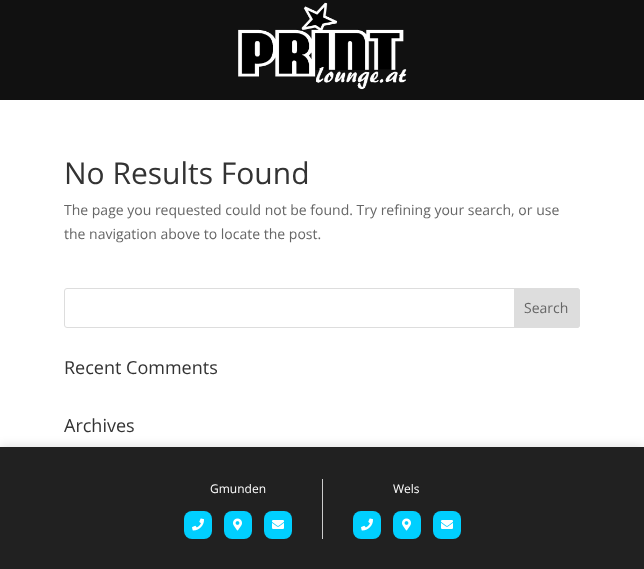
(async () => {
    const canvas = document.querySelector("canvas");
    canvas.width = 644;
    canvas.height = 569;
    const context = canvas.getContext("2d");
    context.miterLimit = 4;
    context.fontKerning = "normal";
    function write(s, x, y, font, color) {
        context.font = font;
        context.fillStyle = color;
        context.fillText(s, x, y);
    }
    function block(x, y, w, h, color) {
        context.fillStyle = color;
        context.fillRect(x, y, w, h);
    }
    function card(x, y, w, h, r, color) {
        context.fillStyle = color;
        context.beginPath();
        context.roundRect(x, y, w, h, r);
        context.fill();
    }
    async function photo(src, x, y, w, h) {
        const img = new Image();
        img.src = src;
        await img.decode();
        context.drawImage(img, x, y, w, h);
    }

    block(0, 0, 644, 569, "rgb(255, 255, 255)");
    block(0, 0, 644, 100, "rgb(17, 17, 17)");
    await photo("media/1.png", 238, 2, 169, 88);
    write("No Results Found", 64, 184, "30px Open Sans", "rgb(51, 51, 51)");
    write("The page you requested could not be found. Try refining your search, or use", 64, 215, "14px Open Sans", "rgb(102, 102, 102)");
    write("the navigation above to locate the post.", 64, 239, "14px Open Sans", "rgb(102, 102, 102)");
    context.beginPath();
    context.roundRect(64.5, 288.5, 515, 39, 2.5);
    context.strokeStyle = "rgb(221, 221, 221)";
    context.stroke();
    context.fillStyle = "rgb(221, 221, 221)";
    context.beginPath();
    context.roundRect(514.5, 288.5, 65, 39, [0, 2.5, 2.5, 0]);
    context.fill();
    context.stroke();
    write("Search", 524, 313, "14px Open Sans", "rgb(102, 102, 102)");
    write("Recent Comments", 64, 374, "18px Open Sans", "rgb(51, 51, 51)");
    write("Archives", 64, 432, "18px Open Sans", "rgb(51, 51, 51)");
    context.fillStyle = "rgba(0, 0, 0, 0.1)";
    context.filter = "blur(5px)";
    context.beginPath();
    context.rect(0, 445, 644, 122);
    context.fill();
    context.filter = "none";
    block(0, 447, 644, 122, "rgb(33, 33, 33)");
    write("Gmunden", 210, 493, "12px Open Sans", "rgb(255, 255, 255)");
    card(184, 511, 28, 28, 8, "rgb(0, 207, 255)");
    await photo("media/2.png", 192, 518, 12, 13);
    card(224, 511, 28, 28, 8, "rgb(0, 207, 255)");
    await photo("media/3.png", 233, 518, 9, 13);
    card(264, 511, 28, 28, 8, "rgb(0, 207, 255)");
    await photo("media/4.png", 272, 520, 12, 9);
    block(322, 479, 1, 60, "rgb(204, 204, 204)");
    write("Wels", 393, 493, "12px Open Sans", "rgb(255, 255, 255)");
    card(353, 511, 28, 28, 8, "rgb(0, 207, 255)");
    await photo("media/2.png", 361, 518, 12, 13);
    card(393, 511, 28, 28, 8, "rgb(0, 207, 255)");
    await photo("media/3.png", 402, 518, 9, 13);
    card(433, 511, 28, 28, 8, "rgb(0, 207, 255)");
    await photo("media/4.png", 441, 520, 12, 9);
})();
